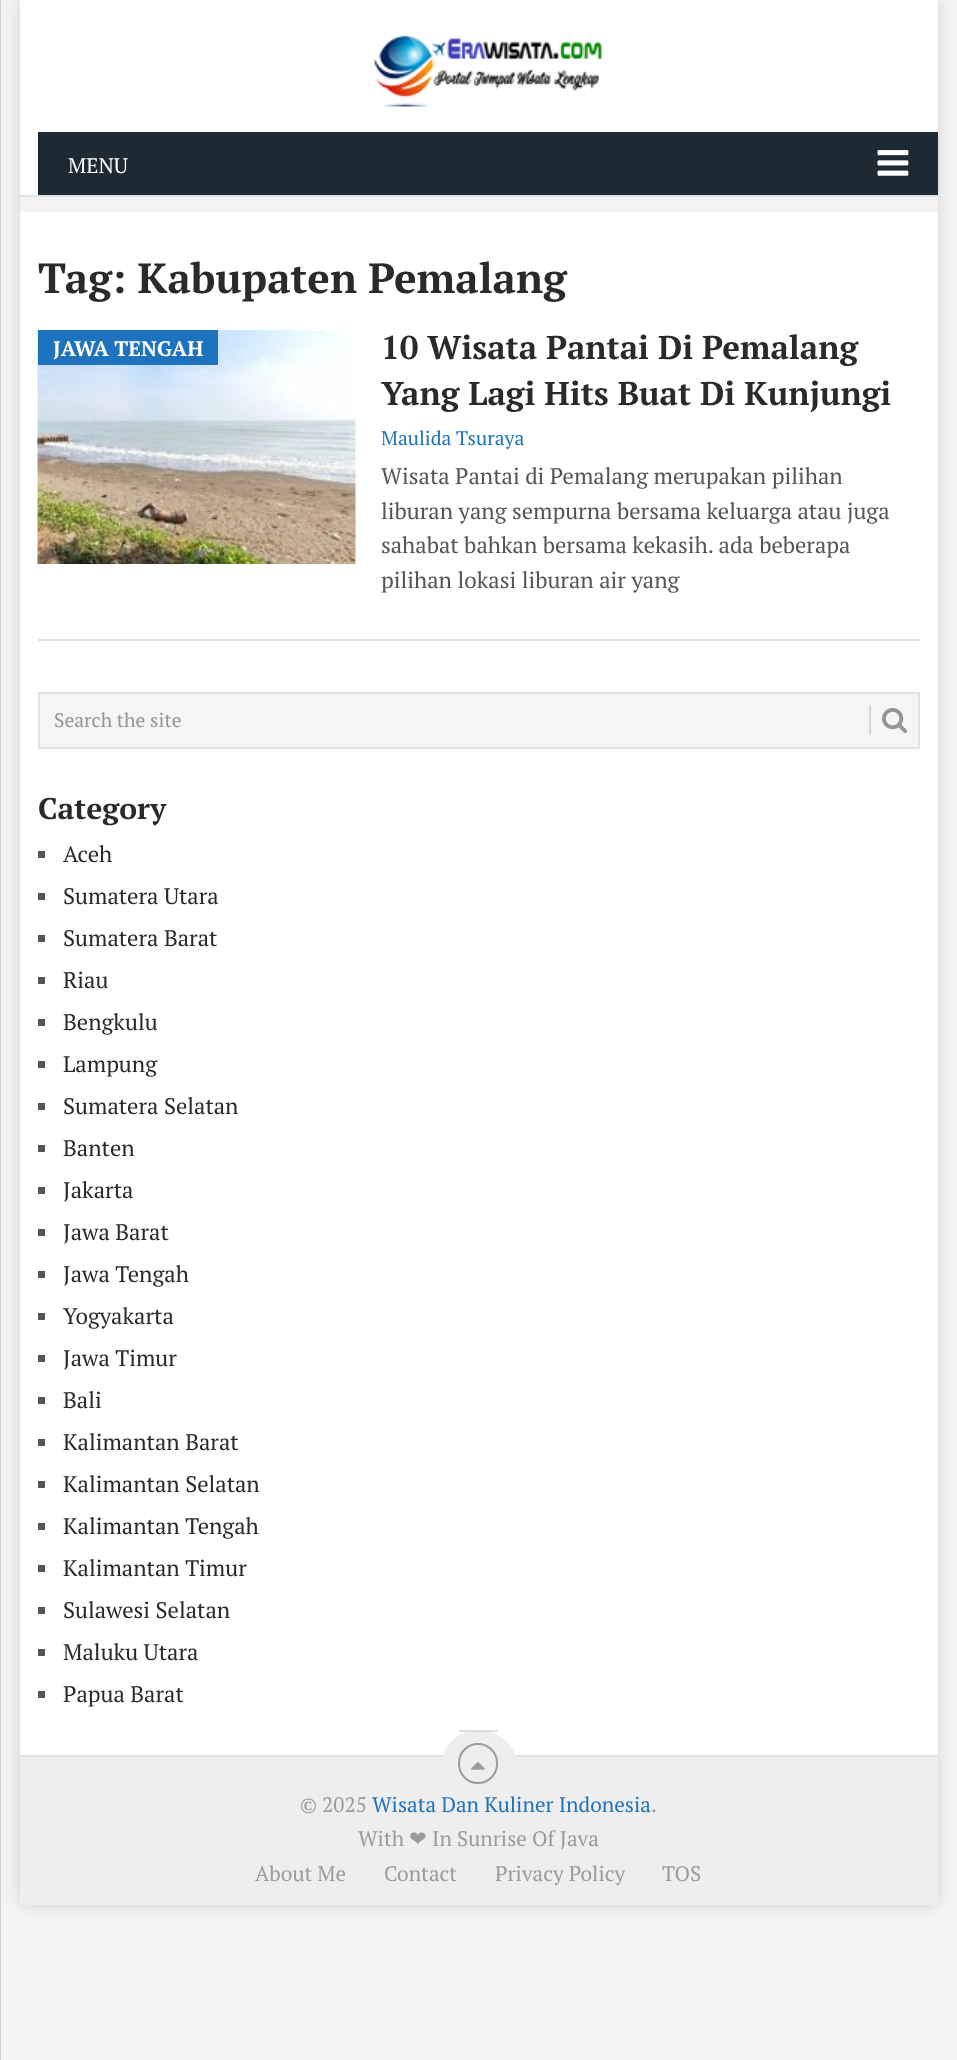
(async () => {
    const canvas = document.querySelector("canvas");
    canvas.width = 957;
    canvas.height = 2060;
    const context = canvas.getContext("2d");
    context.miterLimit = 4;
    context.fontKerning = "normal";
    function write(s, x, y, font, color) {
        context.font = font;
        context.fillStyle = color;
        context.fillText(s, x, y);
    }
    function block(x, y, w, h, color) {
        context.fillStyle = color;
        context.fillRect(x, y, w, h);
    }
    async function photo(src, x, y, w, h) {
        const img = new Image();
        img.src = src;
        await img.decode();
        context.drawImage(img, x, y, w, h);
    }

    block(0, 0, 957, 2060, "rgb(244, 244, 244)");
    context.fillStyle = "rgba(50, 50, 50, 0.17)";
    context.filter = "blur(7.5px)";
    context.beginPath();
    context.rect(20, 0, 918, 1905);
    context.fill();
    context.filter = "none";
    block(20, 0, 918, 1755, "rgb(255, 255, 255)");
    block(20, 197, 918, 15, "rgb(242, 242, 242)");
    block(0, 0, 1, 2060, "rgb(207, 207, 207)");
    await photo("media/1.png", 373, 35, 229, 72);
    block(38, 132, 900, 63, "rgb(29, 41, 51)");
    write("MENU", 68, 173, "21px PT Serif", "rgb(255, 255, 255)");
    await photo("media/2.png", 877, 150, 32, 26);
    block(20, 195, 918, 2, "rgb(226, 226, 226)");
    write("Tag: Kabupaten Pemalang", 38, 293, "bold 42px PT Serif", "rgb(42, 42, 42)");
    block(38, 639, 882, 2, "rgb(226, 226, 226)");
    await photo("media/3.png", 37, 330, 319, 234);
    block(38, 330, 180, 35, "rgb(30, 115, 190)");
    write("JAWA TENGAH", 53, 356, "bold 21px PT Serif", "rgb(255, 255, 255)");
    write("10 Wisata Pantai Di Pemalang", 381, 359, "bold 33px PT Serif", "rgb(42, 42, 42)");
    write("Yang Lagi Hits Buat Di Kunjungi", 381, 405, "bold 33px PT Serif", "rgb(42, 42, 42)");
    write("Maulida Tsuraya", 381, 445, "19.5px PT Serif", "rgb(30, 115, 190)");
    write("Wisata Pantai di Pemalang merupakan pilihan", 381, 484, "22.5px PT Serif", "rgb(85, 85, 85)");
    write("liburan yang sempurna bersama keluarga atau juga", 381, 519, "22.5px PT Serif", "rgb(85, 85, 85)");
    write("sahabat bahkan bersama kekasih. ada beberapa", 381, 553, "22.5px PT Serif", "rgb(85, 85, 85)");
    write("pilihan lokasi liburan air yang", 381, 588, "22.5px PT Serif", "rgb(85, 85, 85)");
    context.fillStyle = "rgb(245, 245, 245)";
    context.beginPath();
    context.rect(39, 693, 880, 55);
    context.fill();
    context.strokeStyle = "rgb(226, 226, 226)";
    context.lineWidth = 2;
    context.stroke();
    write("Search the site", 54, 727, "19.5px PT Serif", "rgb(149, 149, 149)");
    block(869, 705, 2, 30, "rgb(216, 216, 216)");
    await photo("media/4.png", 882, 708, 25, 25);
    write("Category", 38, 819, "bold 30px PT Serif", "rgb(42, 42, 42)");
    block(38, 851, 7, 7, "rgb(85, 85, 85)");
    write("Aceh", 63, 862, "22.5px PT Serif", "rgb(42, 42, 42)");
    block(38, 893, 7, 7, "rgb(85, 85, 85)");
    write("Sumatera Utara", 63, 904, "22.5px PT Serif", "rgb(42, 42, 42)");
    block(38, 935, 7, 7, "rgb(85, 85, 85)");
    write("Sumatera Barat", 63, 946, "22.5px PT Serif", "rgb(42, 42, 42)");
    block(38, 977, 7, 7, "rgb(85, 85, 85)");
    write("Riau", 63, 988, "22.5px PT Serif", "rgb(42, 42, 42)");
    block(38, 1019, 7, 7, "rgb(85, 85, 85)");
    write("Bengkulu", 63, 1030, "22.5px PT Serif", "rgb(42, 42, 42)");
    block(38, 1061, 7, 7, "rgb(85, 85, 85)");
    write("Lampung", 63, 1072, "22.5px PT Serif", "rgb(42, 42, 42)");
    block(38, 1103, 7, 7, "rgb(85, 85, 85)");
    write("Sumatera Selatan", 63, 1114, "22.5px PT Serif", "rgb(42, 42, 42)");
    block(38, 1145, 7, 7, "rgb(85, 85, 85)");
    write("Banten", 63, 1156, "22.5px PT Serif", "rgb(42, 42, 42)");
    block(38, 1187, 7, 7, "rgb(85, 85, 85)");
    write("Jakarta", 63, 1198, "22.5px PT Serif", "rgb(42, 42, 42)");
    block(38, 1229, 7, 7, "rgb(85, 85, 85)");
    write("Jawa Barat", 63, 1240, "22.5px PT Serif", "rgb(42, 42, 42)");
    block(38, 1271, 7, 7, "rgb(85, 85, 85)");
    write("Jawa Tengah", 63, 1282, "22.5px PT Serif", "rgb(42, 42, 42)");
    block(38, 1313, 7, 7, "rgb(85, 85, 85)");
    write("Yogyakarta", 63, 1324, "22.5px PT Serif", "rgb(42, 42, 42)");
    block(38, 1355, 7, 7, "rgb(85, 85, 85)");
    write("Jawa Timur", 63, 1366, "22.5px PT Serif", "rgb(42, 42, 42)");
    block(38, 1397, 7, 7, "rgb(85, 85, 85)");
    write("Bali", 63, 1408, "22.5px PT Serif", "rgb(42, 42, 42)");
    block(38, 1439, 7, 7, "rgb(85, 85, 85)");
    write("Kalimantan Barat", 63, 1450, "22.5px PT Serif", "rgb(42, 42, 42)");
    block(38, 1481, 7, 7, "rgb(85, 85, 85)");
    write("Kalimantan Selatan", 63, 1492, "22.5px PT Serif", "rgb(42, 42, 42)");
    block(38, 1523, 7, 7, "rgb(85, 85, 85)");
    write("Kalimantan Tengah", 63, 1534, "22.5px PT Serif", "rgb(42, 42, 42)");
    block(38, 1565, 7, 7, "rgb(85, 85, 85)");
    write("Kalimantan Timur", 63, 1576, "22.5px PT Serif", "rgb(42, 42, 42)");
    block(38, 1607, 7, 7, "rgb(85, 85, 85)");
    write("Sulawesi Selatan", 63, 1618, "22.5px PT Serif", "rgb(42, 42, 42)");
    block(38, 1649, 7, 7, "rgb(85, 85, 85)");
    write("Maluku Utara", 63, 1660, "22.5px PT Serif", "rgb(42, 42, 42)");
    block(38, 1691, 7, 7, "rgb(85, 85, 85)");
    write("Papua Barat", 63, 1702, "22.5px PT Serif", "rgb(42, 42, 42)");
    block(20, 1757, 918, 148, "rgb(238, 238, 238)");
    block(20, 1755, 918, 2, "rgb(226, 226, 226)");
    context.fillStyle = "rgb(238, 238, 238)";
    context.beginPath();
    context.arc(479, 1769, 39, 0, Math.PI * 2);
    context.fill();
    block(459, 1730, 39, 2, "rgb(221, 221, 221)");
    context.beginPath();
    context.roundRect(459, 1744, 38, 39, 19);
    context.strokeStyle = "rgb(155, 155, 155)";
    context.stroke();
    await photo("media/5.png", 471, 1762, 14, 8);
    write("© 2025", 300, 1812, "21px PT Serif", "rgb(155, 155, 155)");
    write("Wisata Dan Kuliner Indonesia", 372, 1812, "21px PT Serif", "rgb(30, 115, 190)");
    write(".", 651, 1812, "21px PT Serif", "rgb(155, 155, 155)");
    write("With", 358, 1846, "21px PT Serif", "rgb(155, 155, 155)");
    write("❤", 409, 1846, "21px DejaVu Sans", "rgb(155, 155, 155)");
    write("In Sunrise Of Java", 432, 1846, "21px PT Serif", "rgb(155, 155, 155)");
    write("About Me", 255, 1881, "21px PT Serif", "rgb(155, 155, 155)");
    write("Contact", 384, 1881, "21px PT Serif", "rgb(155, 155, 155)");
    write("Privacy Policy", 495, 1881, "21px PT Serif", "rgb(155, 155, 155)");
    write("TOS", 662, 1881, "21px PT Serif", "rgb(155, 155, 155)");
})();
